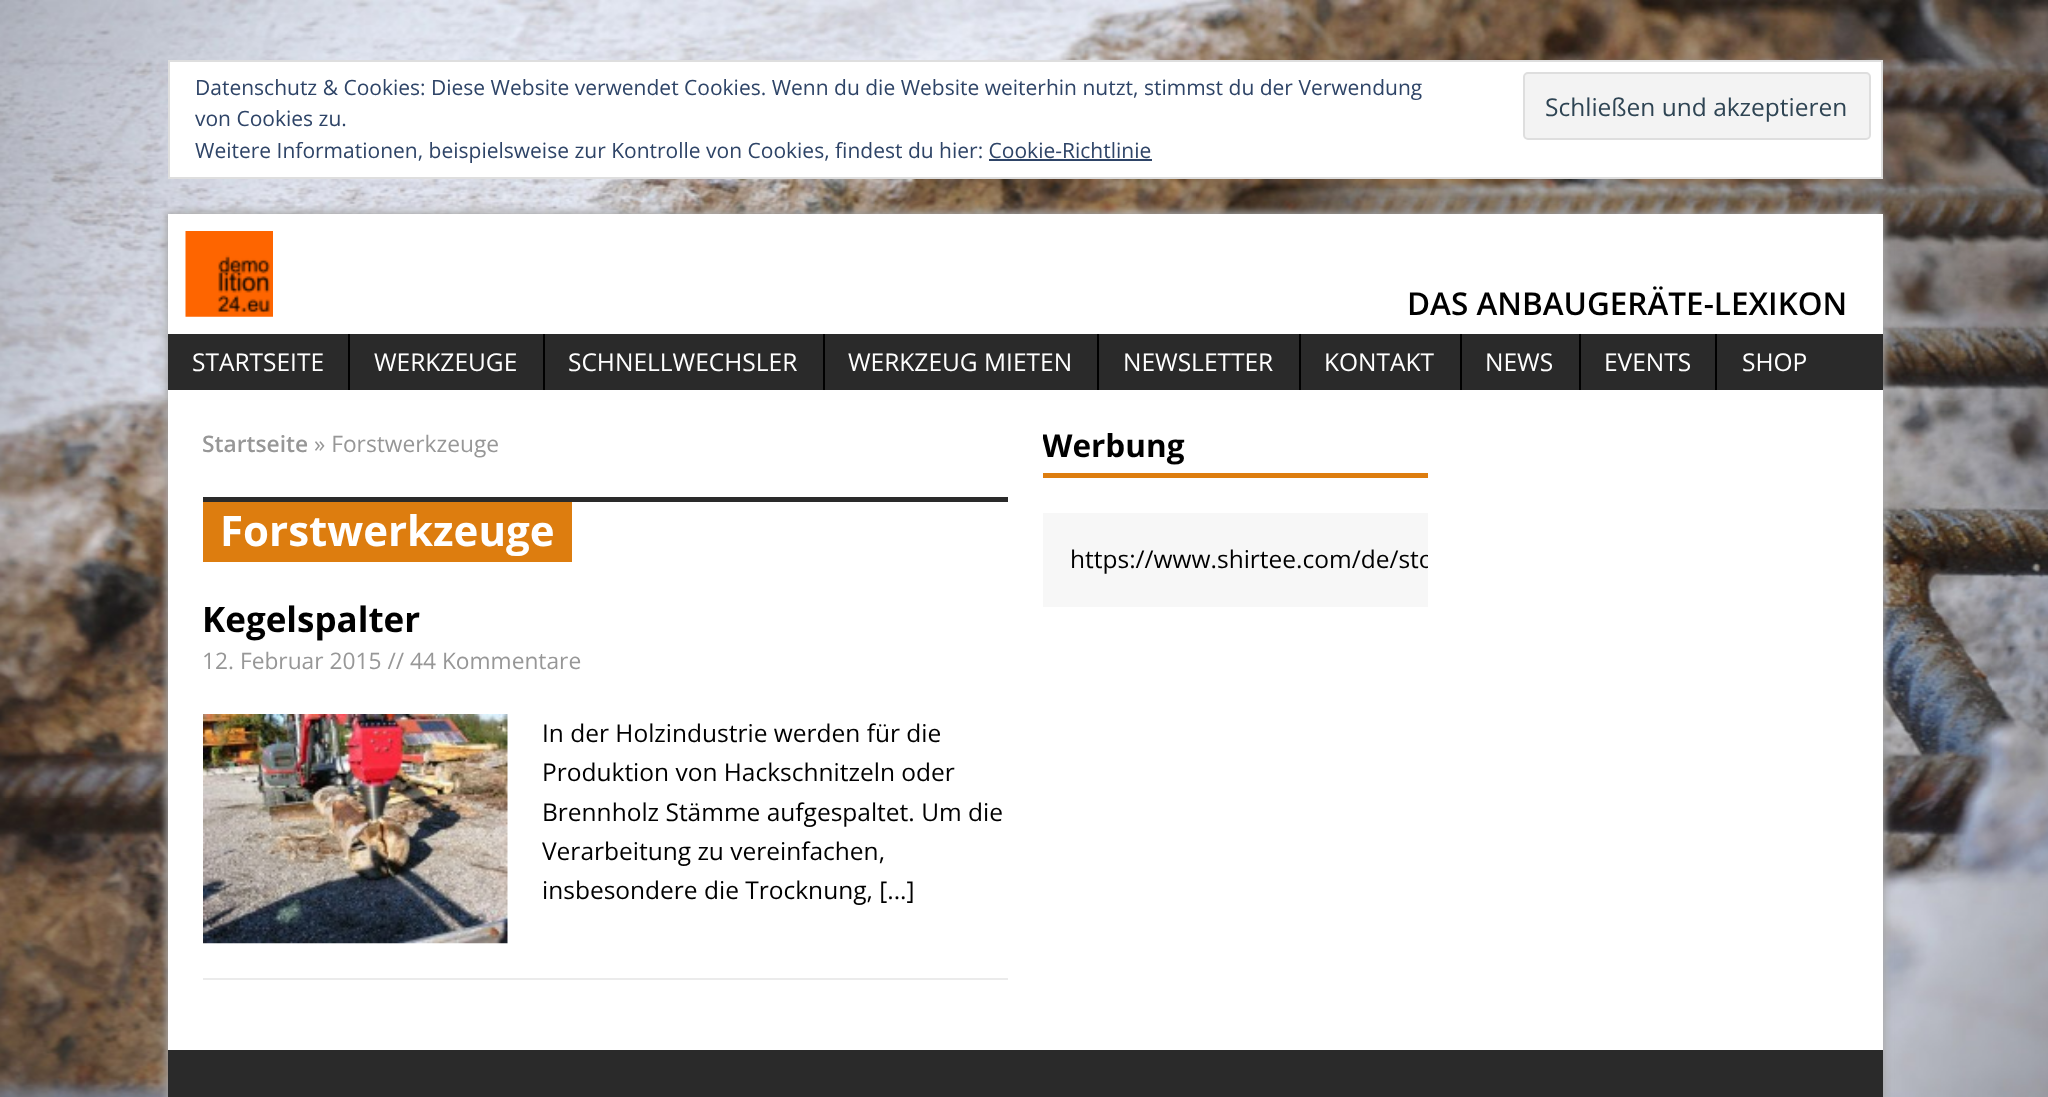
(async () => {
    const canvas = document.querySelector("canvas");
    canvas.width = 2048;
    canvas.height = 1097;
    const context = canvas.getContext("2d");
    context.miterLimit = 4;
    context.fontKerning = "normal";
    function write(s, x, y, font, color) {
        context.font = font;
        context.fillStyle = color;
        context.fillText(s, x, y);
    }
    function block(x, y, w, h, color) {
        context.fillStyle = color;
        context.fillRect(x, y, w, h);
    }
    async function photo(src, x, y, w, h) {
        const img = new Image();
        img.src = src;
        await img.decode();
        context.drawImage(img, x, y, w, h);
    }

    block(0, 0, 2048, 1097, "rgb(255, 255, 255)");
    await photo("media/1.png", 0, 0, 2048, 1097);
    context.beginPath();
    context.rect(169, 61, 1713, 117);
    context.fill();
    context.strokeStyle = "rgb(222, 222, 222)";
    context.lineWidth = 2;
    context.stroke();
    write("Datenschutz & Cookies: Diese Website verwendet Cookies. Wenn du die Website weiterhin nutzt, stimmst du der Verwendung", 195, 95, "21px Open Sans", "rgb(46, 68, 103)");
    write("von Cookies zu.", 195, 126, "21px Open Sans", "rgb(46, 68, 103)");
    context.fillStyle = "rgb(243, 243, 243)";
    context.beginPath();
    context.roundRect(1524, 73, 346, 66, 4);
    context.fill();
    context.stroke();
    write("Schließen und akzeptieren", 1545, 116, "24.5px Open Sans", "rgb(46, 68, 83)");
    write("Weitere Informationen, beispielsweise zur Kontrolle von Cookies, findest du hier: Cookie-Richtlinie", 195, 158, "21px Open Sans", "rgb(46, 68, 103)");
    block(989, 159, 163, 2, "rgb(46, 68, 103)");
    context.fillStyle = "rgb(168, 168, 168)";
    context.filter = "blur(4.5px)";
    context.beginPath();
    context.rect(166, 212, 1719, 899);
    context.fill();
    context.filter = "none";
    block(168, 214, 1715, 120, "rgb(255, 255, 255)");
    await photo("media/2.png", 185, 231, 88, 86);
    write("DAS ANBAUGERÄTE-LEXIKON", 1407, 315, "600 31.5px Open Sans", "rgb(0, 0, 0)");
    block(168, 334, 1715, 56, "rgb(42, 42, 42)");
    write("STARTSEITE", 192, 371, "24.5px Open Sans", "rgb(255, 255, 255)");
    block(348, 334, 2, 56, "rgb(0, 0, 0)");
    write("WERKZEUGE", 374, 371, "24.5px Open Sans", "rgb(255, 255, 255)");
    block(543, 334, 2, 56, "rgb(0, 0, 0)");
    write("SCHNELLWECHSLER", 568, 371, "24.5px Open Sans", "rgb(255, 255, 255)");
    block(823, 334, 2, 56, "rgb(0, 0, 0)");
    write("WERKZEUG MIETEN", 848, 371, "24.5px Open Sans", "rgb(255, 255, 255)");
    block(1097, 334, 2, 56, "rgb(0, 0, 0)");
    write("NEWSLETTER", 1123, 371, "24.5px Open Sans", "rgb(255, 255, 255)");
    block(1299, 334, 2, 56, "rgb(0, 0, 0)");
    write("KONTAKT", 1324, 371, "24.5px Open Sans", "rgb(255, 255, 255)");
    block(1460, 334, 2, 56, "rgb(0, 0, 0)");
    write("NEWS", 1485, 371, "24.5px Open Sans", "rgb(255, 255, 255)");
    block(1579, 334, 2, 56, "rgb(0, 0, 0)");
    write("EVENTS", 1604, 371, "24.5px Open Sans", "rgb(255, 255, 255)");
    block(1715, 334, 2, 56, "rgb(0, 0, 0)");
    write("SHOP", 1742, 371, "24.5px Open Sans", "rgb(255, 255, 255)");
    block(168, 390, 1715, 660, "rgb(255, 255, 255)");
    write("Startseite", 202, 452, "600 22.75px Open Sans", "rgb(151, 151, 151)");
    write("» Forstwerkzeuge", 314, 452, "22.75px Open Sans", "rgb(151, 151, 151)");
    block(203, 497, 805, 5, "rgb(42, 42, 42)");
    block(203, 502, 369, 60, "rgb(221, 125, 15)");
    write("Forstwerkzeuge", 220, 546, "bold 42px Open Sans", "rgb(255, 255, 255)");
    block(203, 978, 805, 2, "rgb(235, 235, 235)");
    write("Kegelspalter", 202, 632, "bold 35px Open Sans", "rgb(0, 0, 0)");
    write("12. Februar 2015 // 44 Kommentare", 202, 669, "22.75px Open Sans", "rgb(151, 151, 151)");
    await photo("media/3.png", 203, 714, 305, 230);
    write("In der Holzindustrie werden für die", 542, 742, "24.5px Open Sans", "rgb(0, 0, 0)");
    write("Produktion von Hackschnitzeln oder", 542, 781, "24.5px Open Sans", "rgb(0, 0, 0)");
    write("Brennholz Stämme aufgespaltet. Um die", 542, 821, "24.5px Open Sans", "rgb(0, 0, 0)");
    write("Verarbeitung zu vereinfachen,", 542, 860, "24.5px Open Sans", "rgb(0, 0, 0)");
    write("insbesondere die Trocknung, [...]", 542, 899, "24.5px Open Sans", "rgb(0, 0, 0)");
    block(1043, 473, 385, 5, "rgb(221, 125, 15)");
    context.save();
    context.beginPath();
    context.rect(1043, 425, 385, 182);
    context.clip();
    write("Werbung", 1042, 457, "bold 31.5px Open Sans", "rgb(0, 0, 0)");
    context.restore();
    block(1043, 513, 385, 94, "rgb(247, 247, 247)");
    context.save();
    context.beginPath();
    context.rect(1043, 425, 385, 182);
    context.clip();
    write("https://www.shirtee.com/de/sto", 1070, 568, "24.5px Open Sans", "rgb(0, 0, 0)");
    context.restore();
    block(168, 1050, 1715, 47, "rgb(42, 42, 42)");
})();
